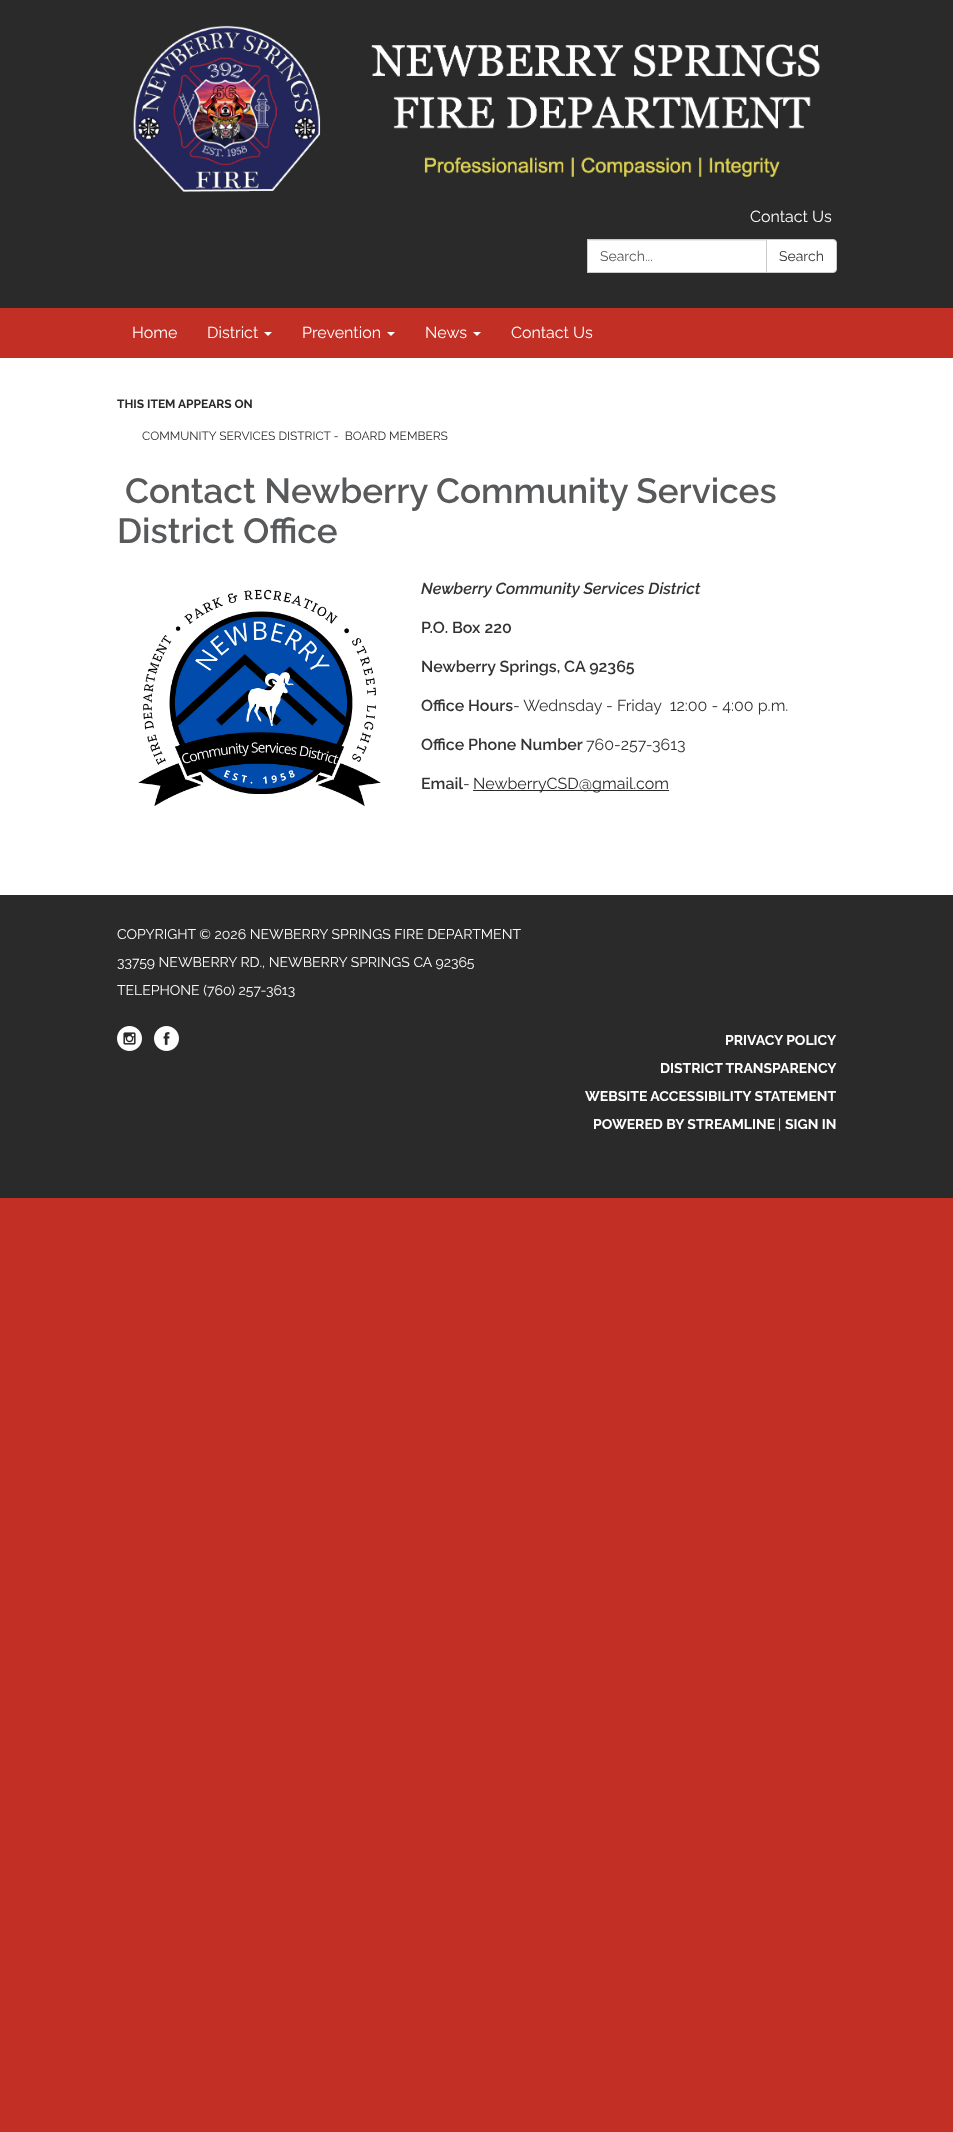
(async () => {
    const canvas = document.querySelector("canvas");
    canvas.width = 953;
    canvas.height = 2132;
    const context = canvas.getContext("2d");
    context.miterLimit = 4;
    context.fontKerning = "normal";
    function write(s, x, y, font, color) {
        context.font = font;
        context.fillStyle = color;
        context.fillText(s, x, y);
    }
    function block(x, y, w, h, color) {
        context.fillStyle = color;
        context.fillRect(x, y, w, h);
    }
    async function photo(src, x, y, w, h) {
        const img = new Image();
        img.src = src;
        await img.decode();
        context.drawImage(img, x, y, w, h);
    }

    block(0, 0, 953, 2132, "rgb(194, 48, 37)");
    block(0, 0, 953, 308, "rgb(43, 42, 42)");
    await photo("media/1.png", 133, 25, 687, 167);
    write("Contact Us", 750, 222, "16px Raleway", "rgb(255, 255, 255)");
    block(588, 241, 178, 31, "rgb(255, 255, 255)");
    block(588, 240, 178, 1, "rgb(236, 236, 236)");
    context.strokeStyle = "rgb(204, 204, 204)";
    context.strokeRect(587.5, 239.5, 179, 33);
    write("Search...", 600, 261, "14px Raleway", "rgb(88, 89, 91)");
    context.fillStyle = "rgb(255, 255, 255)";
    context.beginPath();
    context.roundRect(766.5, 239.5, 70, 33, [0, 3.5, 3.5, 0]);
    context.fill();
    context.stroke();
    write("Search", 779, 261, "14px Raleway", "rgb(51, 51, 51)");
    write("Home", 132, 338, "16px Raleway", "rgb(255, 255, 255)");
    write("District", 207, 338, "16px Raleway", "rgb(255, 255, 255)");
    context.beginPath();
    context.moveTo(264, 332);
    context.lineTo(272, 332);
    context.lineTo(268, 336);
    context.closePath();
    context.fill();
    write("Prevention", 302, 338, "16px Raleway", "rgb(255, 255, 255)");
    context.beginPath();
    context.moveTo(387, 332);
    context.lineTo(395, 332);
    context.lineTo(391, 336);
    context.closePath();
    context.fill();
    write("News", 425, 338, "16px Raleway", "rgb(255, 255, 255)");
    context.beginPath();
    context.moveTo(473, 332);
    context.lineTo(481, 332);
    context.lineTo(477, 336);
    context.closePath();
    context.fill();
    write("Contact Us", 511, 338, "16px Raleway", "rgb(255, 255, 255)");
    block(0, 358, 953, 537, "rgb(255, 255, 255)");
    write("THIS ITEM APPEARS ON", 117, 408, "bold 12px Raleway", "rgb(42, 42, 42)");
    write("COMMUNITY SERVICES DISTRICT -  BOARD MEMBERS", 142, 440, "12px Raleway", "rgb(42, 42, 42)");
    write("Contact Newberry Community Services", 125, 503, "600 35px Raleway", "rgb(88, 89, 91)");
    write("District Office", 117, 543, "600 35px Raleway", "rgb(88, 89, 91)");
    await photo("media/2.png", 138, 589, 243, 218);
    write("Newberry Community Services District", 421, 594, "italic 600 16px Raleway", "rgb(51, 51, 51)");
    write("P.O. Box 220", 421, 633, "600 16px Raleway", "rgb(51, 51, 51)");
    write("Newberry Springs, CA 92365", 421, 672, "600 16px Raleway", "rgb(51, 51, 51)");
    write("Office Hours", 421, 711, "600 16px Raleway", "rgb(51, 51, 51)");
    write("- Wednsday - Friday  12:00 - 4:00 p.m.", 513, 711, "16px Raleway", "rgb(51, 51, 51)");
    write("Office Phone Number", 421, 750, "600 16px Raleway", "rgb(51, 51, 51)");
    write("760-257-3613", 586, 750, "16px Raleway", "rgb(51, 51, 51)");
    write("Email", 421, 789, "600 16px Raleway", "rgb(51, 51, 51)");
    write("-", 463, 789, "16px Raleway", "rgb(51, 51, 51)");
    block(473, 790, 196, 1, "rgb(42, 42, 42)");
    write("NewberryCSD@gmail.com", 473, 789, "16px Raleway", "rgb(42, 42, 42)");
    block(0, 895, 953, 303, "rgb(43, 42, 42)");
    write("COPYRIGHT © 2026 NEWBERRY SPRINGS FIRE DEPARTMENT", 117, 939, "14px Raleway", "rgb(255, 255, 255)");
    write("33759 NEWBERRY RD., NEWBERRY SPRINGS CA 92365", 117, 967, "14px Raleway", "rgb(255, 255, 255)");
    write("TELEPHONE (760) 257-3613", 117, 995, "14px Raleway", "rgb(255, 255, 255)");
    await photo("media/3.png", 117, 1026, 25, 25);
    await photo("media/4.png", 154, 1026, 25, 25);
    write("PRIVACY POLICY", 725, 1045, "bold 14px Raleway", "rgb(255, 255, 255)");
    write("DISTRICT TRANSPARENCY", 660, 1073, "bold 14px Raleway", "rgb(255, 255, 255)");
    write("WEBSITE ACCESSIBILITY STATEMENT", 585, 1101, "bold 14px Raleway", "rgb(255, 255, 255)");
    write("POWERED BY STREAMLINE", 593, 1129, "bold 14px Raleway", "rgb(255, 255, 255)");
    write("|", 778, 1129, "14px Raleway", "rgb(255, 255, 255)");
    write("SIGN IN", 785, 1129, "bold 14px Raleway", "rgb(255, 255, 255)");
})();
